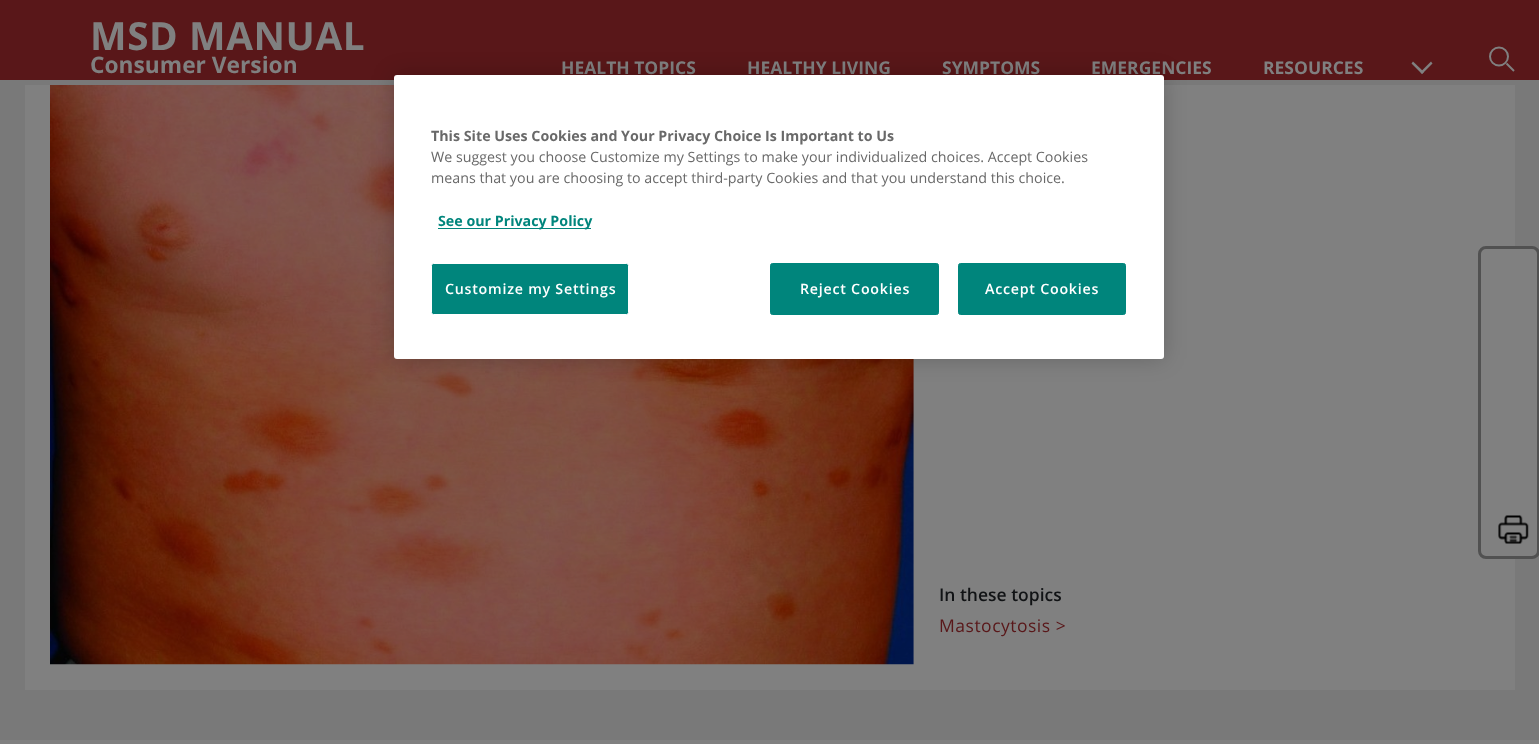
(async () => {
    const canvas = document.querySelector("canvas");
    canvas.width = 1539;
    canvas.height = 744;
    const context = canvas.getContext("2d");
    context.miterLimit = 4;
    context.fontKerning = "normal";
    function write(s, x, y, font, color) {
        context.font = font;
        context.fillStyle = color;
        context.fillText(s, x, y);
    }
    function block(x, y, w, h, color) {
        context.fillStyle = color;
        context.fillRect(x, y, w, h);
    }
    function card(x, y, w, h, r, color) {
        context.fillStyle = color;
        context.beginPath();
        context.roundRect(x, y, w, h, r);
        context.fill();
    }
    async function photo(src, x, y, w, h) {
        const img = new Image();
        img.src = src;
        await img.decode();
        context.drawImage(img, x, y, w, h);
    }

    block(0, 0, 1539, 744, "rgb(121, 121, 121)");
    block(0, 0, 1539, 80, "rgb(89, 23, 25)");
    context.letterSpacing = "0.6px";
    write("MSD MANUAL", 90, 50, "bold 38.75px Open Sans", "rgb(128, 128, 128)");
    context.letterSpacing = "0px";
    write("Consumer Version", 90, 73, "bold 22.75px Open Sans", "rgb(128, 128, 128)");
    write("HEALTH TOPICS", 561, 74, "bold 17.5px Open Sans", "rgb(128, 128, 128)");
    write("HEALTHY LIVING", 747, 74, "bold 17.5px Open Sans", "rgb(128, 128, 128)");
    write("SYMPTOMS", 942, 74, "bold 17.5px Open Sans", "rgb(128, 128, 128)");
    write("EMERGENCIES", 1091, 74, "bold 17.5px Open Sans", "rgb(128, 128, 128)");
    write("RESOURCES", 1263, 74, "bold 17.5px Open Sans", "rgb(128, 128, 128)");
    context.beginPath();
    context.moveTo(1431, 61.5);
    context.lineTo(1432.5, 63.5);
    context.lineTo(1422, 74);
    context.lineTo(1420.5, 72);
    context.closePath();
    context.fill();
    context.beginPath();
    context.moveTo(1413, 61.5);
    context.lineTo(1424, 72);
    context.lineTo(1422, 74);
    context.lineTo(1411.5, 63.5);
    context.closePath();
    context.fill();
    context.beginPath();
    context.arc(1499, 56.5, 9, 0, Math.PI * 2);
    context.strokeStyle = "rgb(128, 128, 128)";
    context.lineWidth = 2;
    context.stroke();
    context.beginPath();
    context.moveTo(1514, 71);
    context.lineTo(1506.5, 63.5);
    context.stroke();
    block(25, 85, 1490, 605, "rgb(128, 128, 128)");
    context.beginPath();
    context.roundRect(1479.5, 247.5, 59, 310, 6.5);
    context.fill();
    context.strokeStyle = "rgb(81, 81, 81)";
    context.lineWidth = 3;
    context.stroke();
    await photo("media/1.png", 1498, 515, 31, 29);
    await photo("media/2.png", 50, 85, 864, 580);
    write("In these topics", 939, 601, "600 17.5px Open Sans", "rgb(17, 19, 21)");
    context.letterSpacing = "0.5px";
    write("Mastocytosis >", 939, 632, "17.5px Open Sans", "rgb(89, 23, 25)");
    block(0, 740, 1539, 4, "rgb(128, 128, 128)");
    context.fillStyle = "rgba(0, 0, 0, 0.2)";
    context.filter = "blur(11px)";
    context.beginPath();
    context.roundRect(394, 75, 770, 284, 3);
    context.fill();
    context.filter = "none";
    card(394, 75, 770, 284, 3, "rgb(255, 255, 255)");
    context.letterSpacing = "0px";
    write("This Site Uses Cookies and Your Privacy Choice Is Important to Us", 431, 141, "bold 14.25px Open Sans", "rgb(105, 105, 105)");
    write("We suggest you choose Customize my Settings to make your individualized choices. Accept Cookies", 431, 162, "14.25px Open Sans", "rgb(105, 105, 105)");
    write("means that you are choosing to accept third-party Cookies and that you understand this choice.", 431, 183, "14.25px Open Sans", "rgb(105, 105, 105)");
    block(438, 228, 153, 1, "rgb(0, 133, 124)");
    write("See our Privacy Policy", 438, 226, "bold 14.25px Open Sans", "rgb(0, 133, 124)");
    context.beginPath();
    context.roundRect(431.5, 263.5, 197, 51, 2);
    context.fill();
    context.strokeStyle = "rgb(255, 255, 255)";
    context.lineWidth = 1;
    context.stroke();
    context.letterSpacing = "0.75px";
    write("Customize my Settings", 445, 294, "600 14.25px Open Sans", "rgb(255, 255, 255)");
    context.fillStyle = "rgb(0, 133, 124)";
    context.beginPath();
    context.roundRect(770.5, 263.5, 168, 51, 2);
    context.fill();
    context.strokeStyle = "rgb(0, 133, 124)";
    context.stroke();
    write("Reject Cookies", 800, 294, "600 14.25px Open Sans", "rgb(255, 255, 255)");
    context.fillStyle = "rgb(0, 133, 124)";
    context.beginPath();
    context.roundRect(958.5, 263.5, 167, 51, 2);
    context.fill();
    context.stroke();
    write("Accept Cookies", 985, 294, "600 14.25px Open Sans", "rgb(255, 255, 255)");
})();
